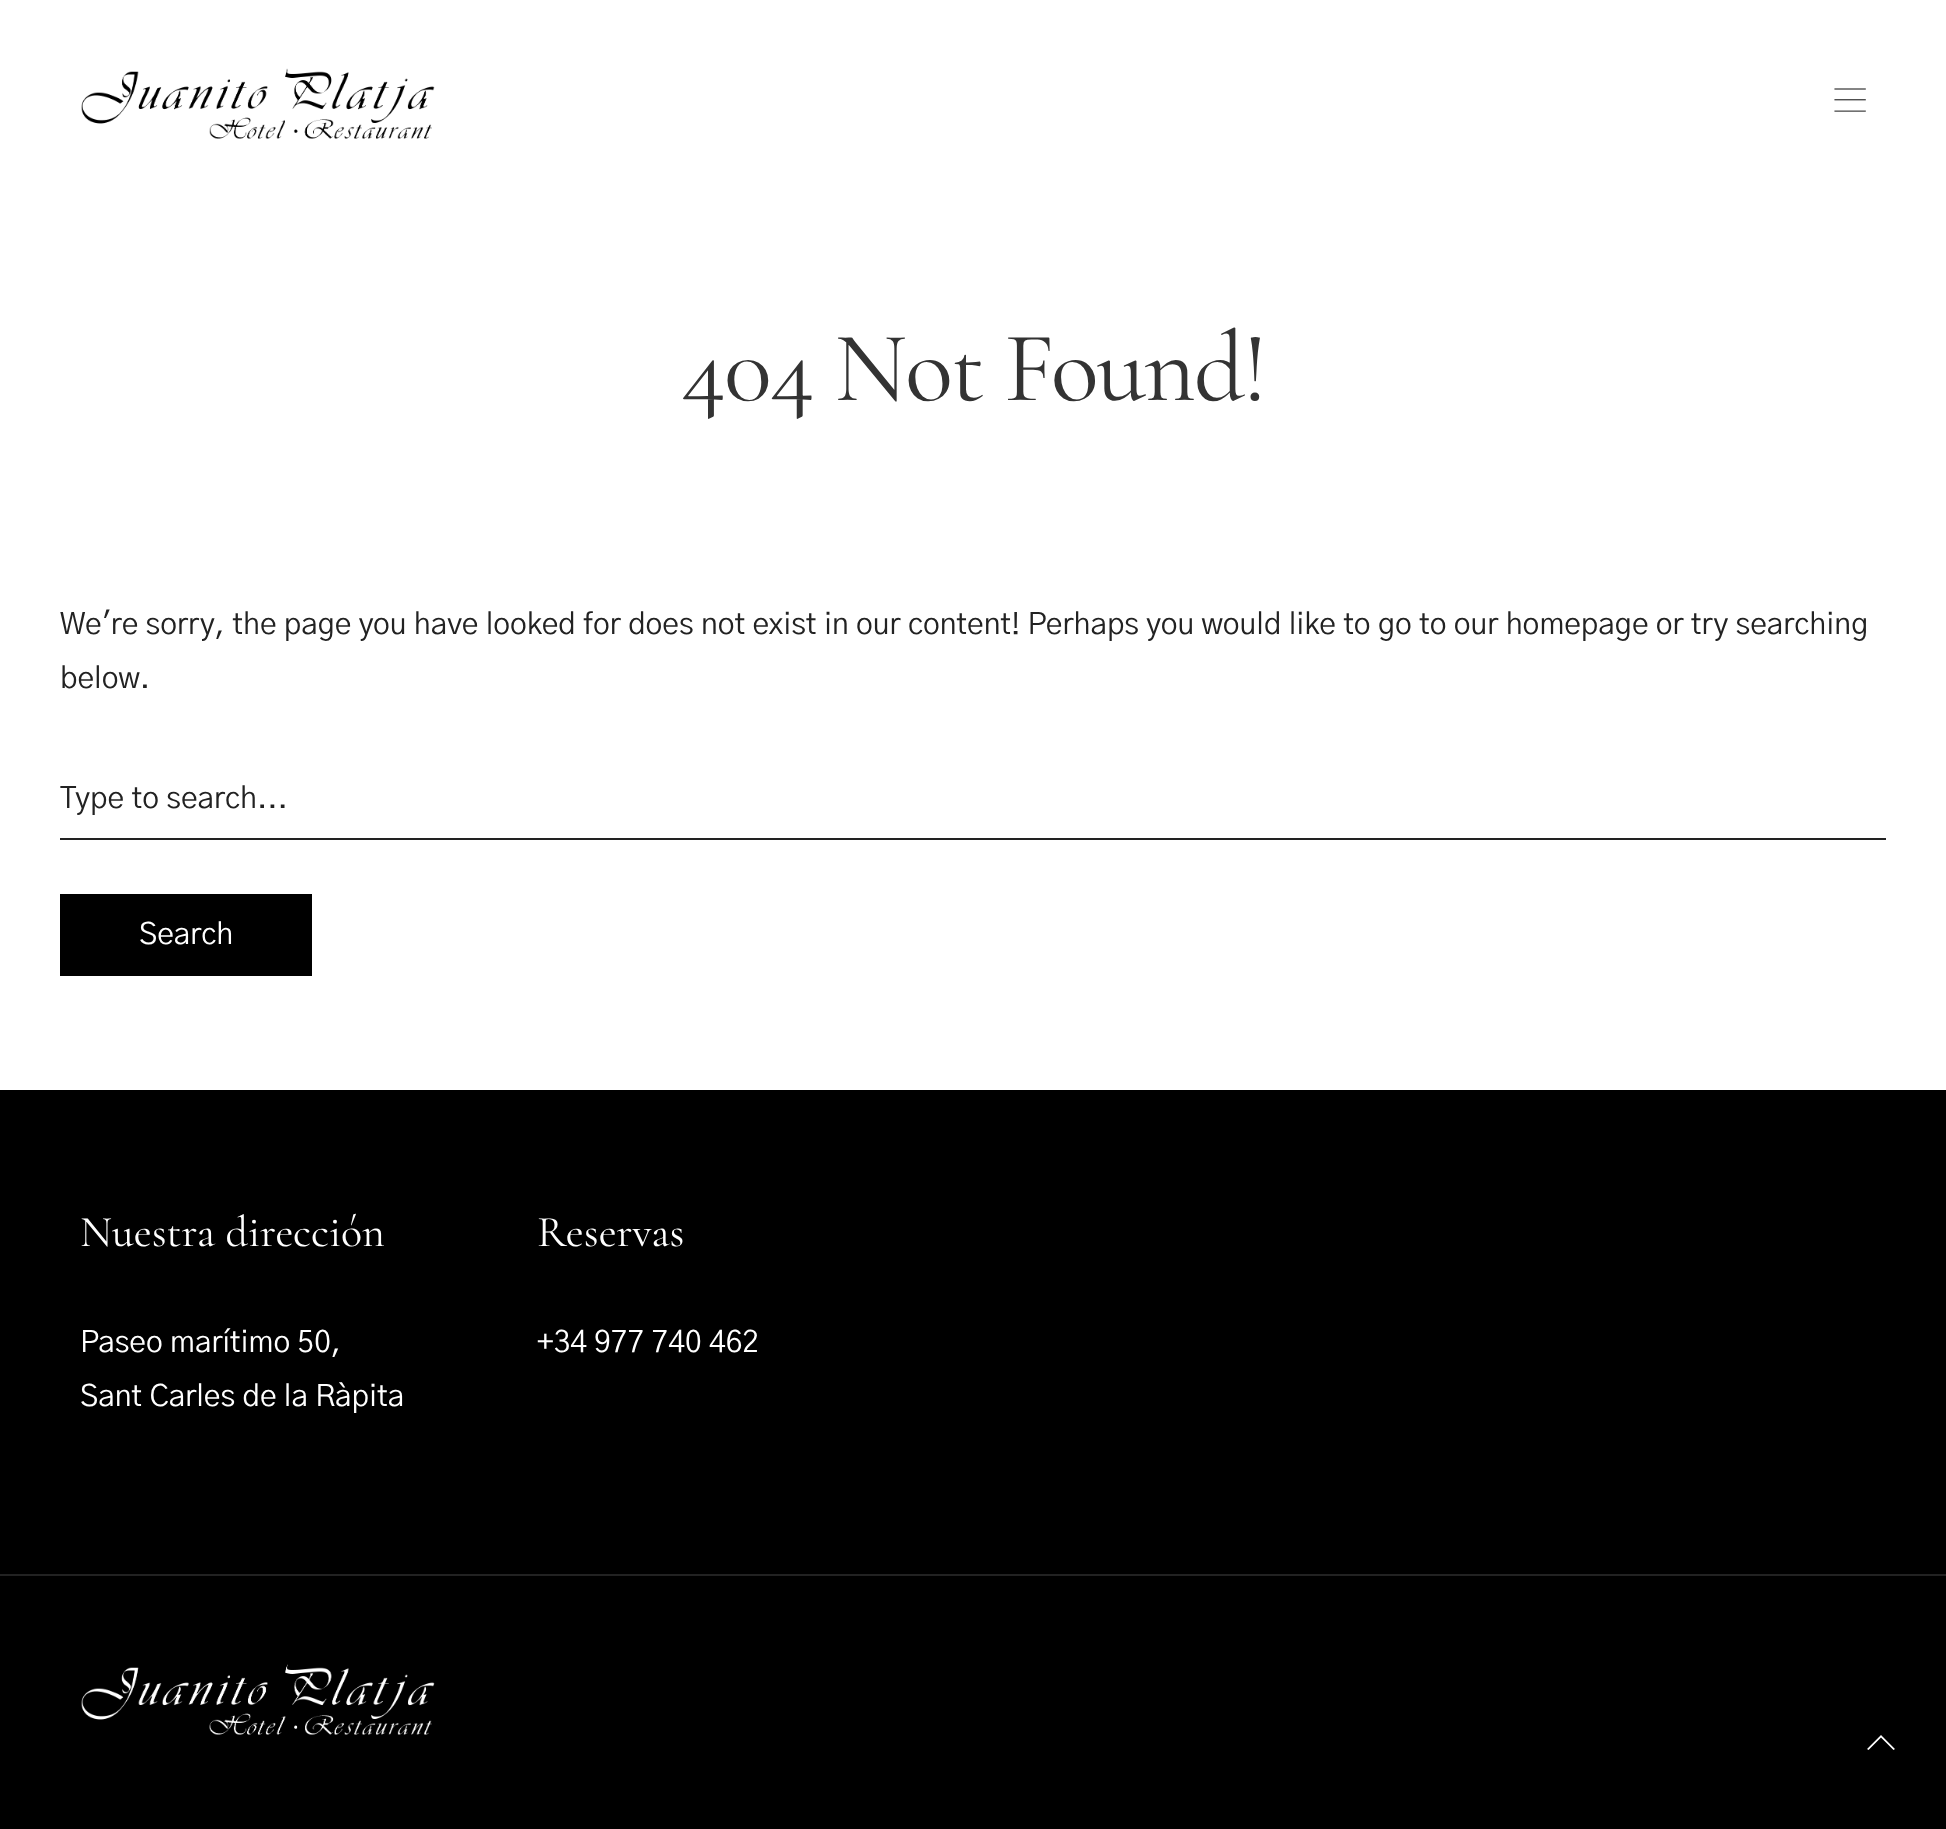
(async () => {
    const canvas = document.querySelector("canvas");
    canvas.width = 1946;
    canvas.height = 1829;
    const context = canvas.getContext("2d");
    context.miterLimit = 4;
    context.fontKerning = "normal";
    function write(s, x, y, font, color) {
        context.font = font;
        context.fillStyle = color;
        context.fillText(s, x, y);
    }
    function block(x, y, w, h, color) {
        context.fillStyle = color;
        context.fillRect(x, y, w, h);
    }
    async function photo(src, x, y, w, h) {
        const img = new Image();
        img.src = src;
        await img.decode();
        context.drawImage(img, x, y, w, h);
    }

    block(0, 0, 1946, 1829, "rgb(255, 255, 255)");
    await photo("media/1.png", 81, 68, 354, 71);
    await photo("media/2.png", 1834, 88, 32, 24);
    context.letterSpacing = "-2px";
    write("404 Not Found!", 681, 400, "100px Cormorant Garamond", "rgb(51, 51, 51)");
    context.letterSpacing = "0px";
    write("We're sorry, the page you have looked for does not exist in our content! Perhaps you would like to go to our homepage or try searching", 60, 634, "30px 'Gothic A1'", "rgb(34, 34, 34)");
    write("below.", 60, 688, "30px 'Gothic A1'", "rgb(34, 34, 34)");
    block(60, 838, 1826, 2, "rgb(34, 34, 34)");
    write("Type to search...", 60, 808, "30px 'Gothic A1'", "rgb(34, 34, 34)");
    block(60, 894, 252, 82, "rgb(0, 0, 0)");
    write("Search", 139, 944, "30px 'Gothic A1'", "rgb(255, 255, 255)");
    block(0, 1090, 1946, 484, "rgb(0, 0, 0)");
    write("Nuestra dirección", 80, 1246, "44px Cormorant Garamond", "rgb(255, 255, 255)");
    write("Paseo marítimo 50,", 80, 1352, "30px 'Gothic A1'", "rgb(255, 255, 255)");
    write("Sant Carles de la Ràpita", 80, 1406, "30px 'Gothic A1'", "rgb(255, 255, 255)");
    write("Reservas", 537, 1246, "44px Cormorant Garamond", "rgb(255, 255, 255)");
    write("+34 977 740 462", 537, 1352, "30px 'Gothic A1'", "rgb(255, 255, 255)");
    block(0, 1576, 1946, 253, "rgb(0, 0, 0)");
    block(0, 1574, 1946, 2, "rgb(34, 34, 34)");
    await photo("media/3.png", 81, 1664, 354, 71);
    context.fillStyle = "rgb(255, 255, 255)";
    context.beginPath();
    context.moveTo(1895, 1749);
    context.lineTo(1893.5, 1750);
    context.lineTo(1881, 1737.5);
    context.lineTo(1868.5, 1750);
    context.lineTo(1867, 1749);
    context.lineTo(1881, 1735);
    context.closePath();
    context.fill();
})();
